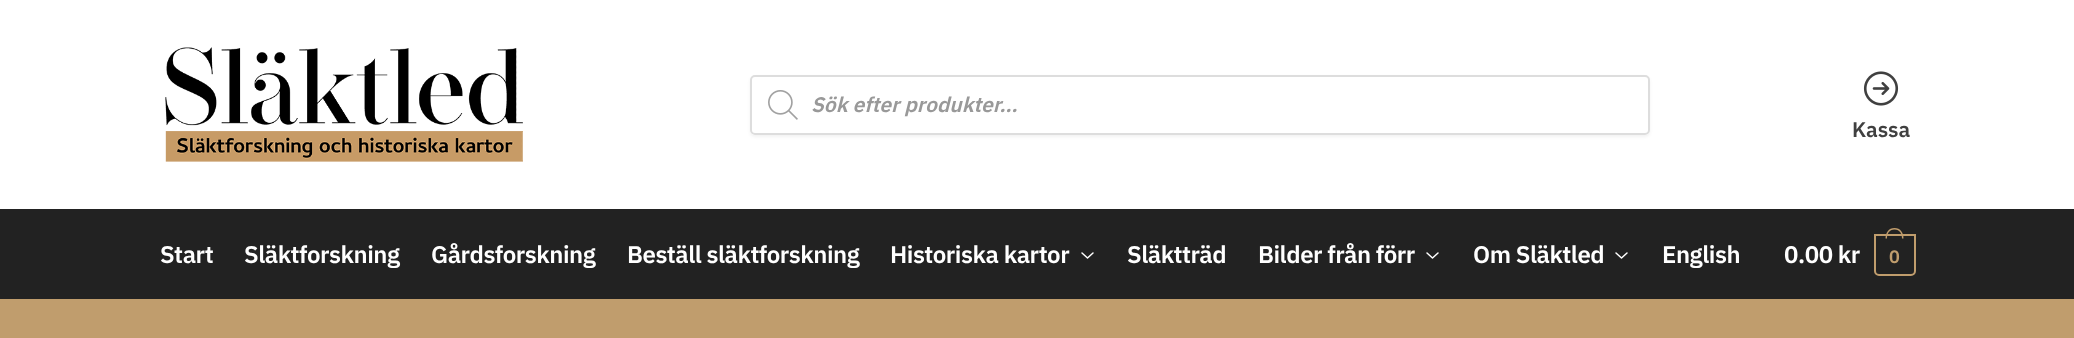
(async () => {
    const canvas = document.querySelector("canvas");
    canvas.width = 2074;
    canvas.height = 338;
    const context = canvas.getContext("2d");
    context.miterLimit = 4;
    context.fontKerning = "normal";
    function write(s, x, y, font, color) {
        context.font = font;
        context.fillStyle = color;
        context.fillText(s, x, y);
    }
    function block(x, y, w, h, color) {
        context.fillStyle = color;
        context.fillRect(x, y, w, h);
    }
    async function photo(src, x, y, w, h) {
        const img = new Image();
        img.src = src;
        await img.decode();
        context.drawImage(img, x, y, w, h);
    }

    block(0, 0, 2074, 338, "rgb(192, 157, 109)");
    block(0, 0, 2074, 209, "rgb(255, 255, 255)");
    await photo("media/1.png", 165, 47, 358, 115);
    context.save();
    context.beginPath();
    context.moveTo(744, 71);
    context.lineTo(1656, 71);
    context.lineTo(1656, 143);
    context.lineTo(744, 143);
    context.closePath();
    context.moveTo(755, 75);
    context.lineTo(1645, 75);
    context.bezierCurveTo(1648, 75, 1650, 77, 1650, 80);
    context.lineTo(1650, 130);
    context.bezierCurveTo(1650, 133, 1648, 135, 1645, 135);
    context.lineTo(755, 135);
    context.bezierCurveTo(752, 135, 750, 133, 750, 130);
    context.lineTo(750, 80);
    context.bezierCurveTo(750, 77, 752, 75, 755, 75);
    context.closePath();
    context.clip("evenodd");
    context.fillStyle = "rgba(0, 0, 0, 0.05)";
    context.filter = "blur(1.5px)";
    context.beginPath();
    context.roundRect(750, 77, 900, 60, 5);
    context.fill();
    context.filter = "none";
    context.restore();
    context.beginPath();
    context.roundRect(751, 76, 898, 58, 4);
    context.strokeStyle = "rgb(221, 221, 221)";
    context.lineWidth = 2;
    context.stroke();
    await photo("media/2.png", 768, 90, 30, 30);
    write("Sök efter produkter…", 811, 112, "italic 600 21px IBM Plex Sans", "rgb(153, 153, 153)");
    await photo("media/3.png", 1863, 71, 36, 35);
    write("Kassa", 1852, 137, "600 21px IBM Plex Sans", "rgb(64, 64, 64)");
    block(0, 209, 2074, 90, "rgb(34, 34, 34)");
    context.letterSpacing = "-0.45px";
    write("Start", 160, 263, "600 24px IBM Plex Sans", "rgb(255, 255, 255)");
    write("Släktforskning", 244, 263, "600 24px IBM Plex Sans", "rgb(255, 255, 255)");
    write("Gårdsforskning", 431, 263, "600 24px IBM Plex Sans", "rgb(255, 255, 255)");
    write("Beställ släktforskning", 627, 263, "600 24px IBM Plex Sans", "rgb(255, 255, 255)");
    write("Historiska kartor", 890, 263, "600 24px IBM Plex Sans", "rgb(255, 255, 255)");
    context.beginPath();
    context.moveTo(1093, 253);
    context.lineTo(1087.5, 258);
    context.lineTo(1082, 253);
    context.strokeStyle = "rgb(255, 255, 255)";
    context.lineWidth = 1.5;
    context.lineCap = "round";
    context.lineJoin = "round";
    context.stroke();
    write("Släktträd", 1127, 263, "600 24px IBM Plex Sans", "rgb(255, 255, 255)");
    write("Bilder från förr", 1258, 263, "600 24px IBM Plex Sans", "rgb(255, 255, 255)");
    context.beginPath();
    context.moveTo(1438, 253);
    context.lineTo(1432.5, 258);
    context.lineTo(1427, 253);
    context.stroke();
    write("Om Släktled", 1473, 263, "600 24px IBM Plex Sans", "rgb(255, 255, 255)");
    context.beginPath();
    context.moveTo(1627, 253);
    context.lineTo(1621.5, 258);
    context.lineTo(1616, 253);
    context.stroke();
    write("English", 1662, 263, "600 24px IBM Plex Sans", "rgb(255, 255, 255)");
    write("0.00 kr", 1784, 263, "600 24px IBM Plex Sans", "rgb(255, 255, 255)");
    context.beginPath();
    context.roundRect(1875, 235, 40, 40, [0, 0, 4, 4]);
    context.strokeStyle = "rgb(192, 157, 109)";
    context.lineWidth = 2;
    context.lineJoin = "miter";
    context.stroke();
    context.fillStyle = "rgb(192, 157, 109)";
    context.beginPath();
    context.moveTo(1894.5, 228);
    context.bezierCurveTo(1900.5, 228, 1903.5, 233, 1903.5, 238.5);
    context.lineTo(1885.5, 238.5);
    context.bezierCurveTo(1885.5, 233, 1888.5, 228, 1894.5, 228);
    context.closePath();
    context.moveTo(1894.5, 229.5);
    context.bezierCurveTo(1900, 229.5, 1902, 234, 1902, 238.5);
    context.lineTo(1887, 238.5);
    context.bezierCurveTo(1887, 234, 1889, 229.5, 1894.5, 229.5);
    context.closePath();
    context.fill("evenodd");
    context.letterSpacing = "-1px";
    write("0", 1889, 263, "600 18px IBM Plex Sans", "rgb(192, 157, 109)");
})();
